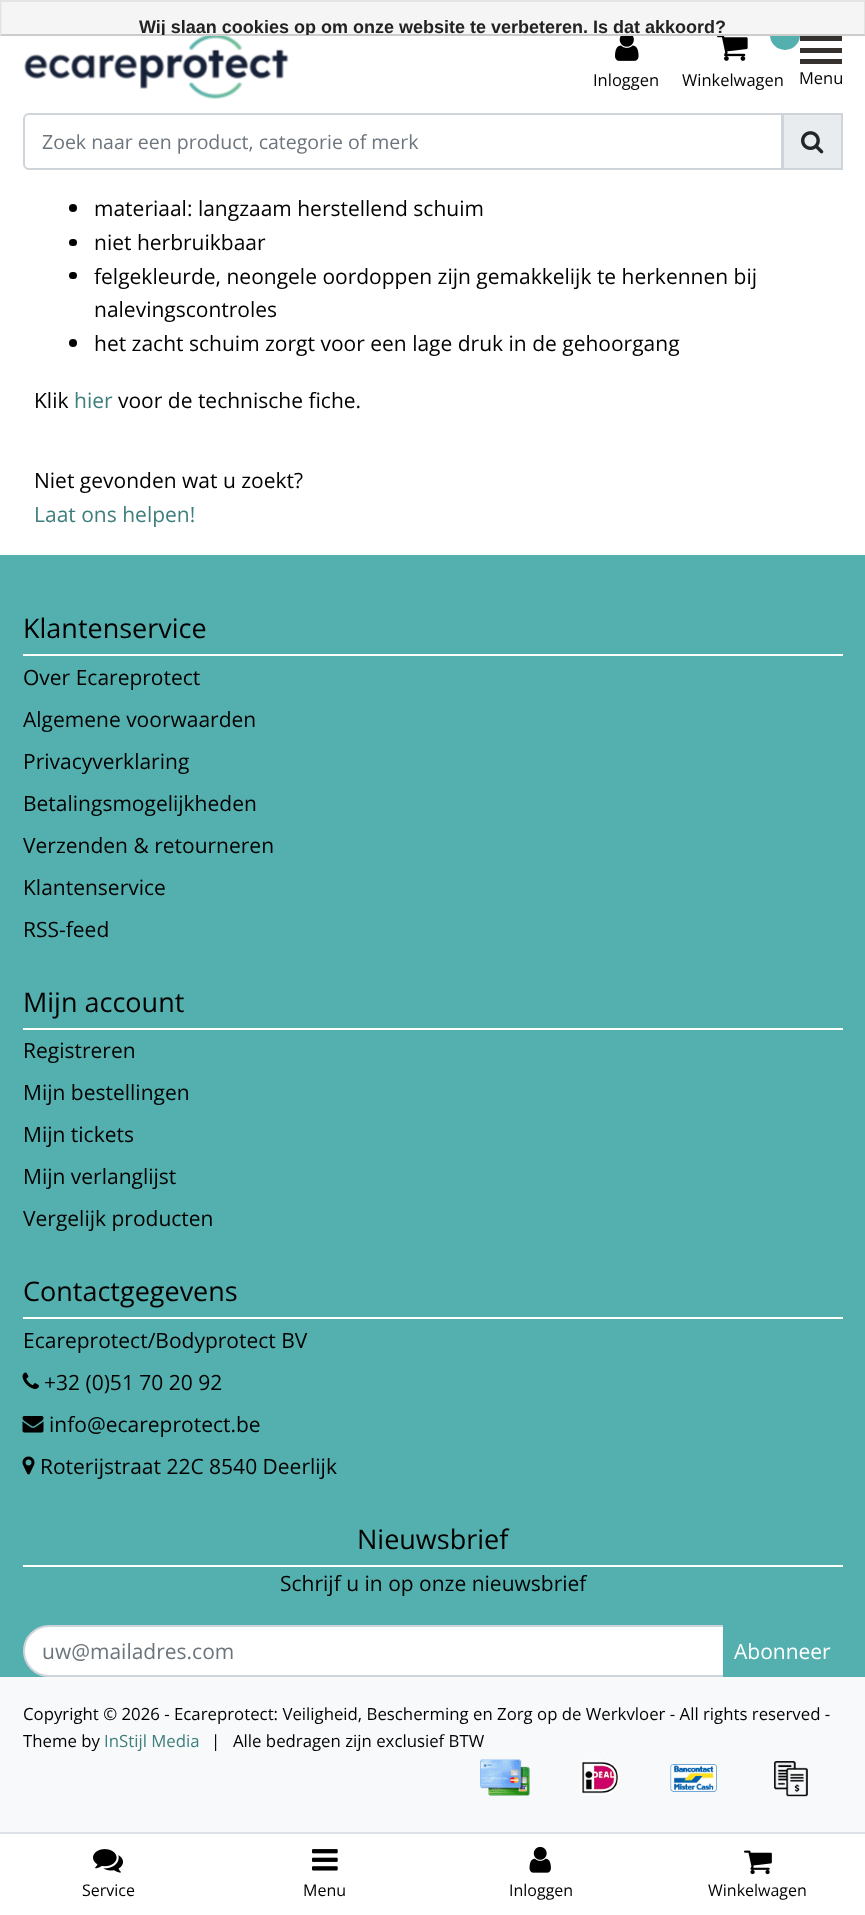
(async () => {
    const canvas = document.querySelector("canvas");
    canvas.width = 865;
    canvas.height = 1915;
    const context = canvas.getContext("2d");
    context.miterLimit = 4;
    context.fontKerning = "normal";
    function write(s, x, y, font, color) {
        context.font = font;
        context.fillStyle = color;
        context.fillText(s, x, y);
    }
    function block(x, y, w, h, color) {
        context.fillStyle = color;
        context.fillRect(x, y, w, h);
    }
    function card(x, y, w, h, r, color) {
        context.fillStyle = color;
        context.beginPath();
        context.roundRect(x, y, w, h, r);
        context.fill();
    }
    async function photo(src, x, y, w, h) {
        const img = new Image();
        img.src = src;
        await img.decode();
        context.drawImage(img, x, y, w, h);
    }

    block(0, 0, 865, 1915, "rgb(255, 255, 255)");
    context.fillStyle = "rgb(84, 176, 175)";
    context.beginPath();
    context.arc(785, 35, 15, 0, Math.PI * 2);
    context.fill();
    block(0, 0, 865, 36, "rgb(245, 245, 245)");
    context.fillStyle = "rgb(228, 228, 228)";
    context.beginPath();
    context.moveTo(0, 0);
    context.lineTo(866, 0);
    context.lineTo(864, 2);
    context.lineTo(2, 2);
    context.closePath();
    context.fill();
    context.fillStyle = "rgba(0, 0, 0, 0.07)";
    context.beginPath();
    context.moveTo(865.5, 0);
    context.lineTo(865.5, 36);
    context.lineTo(864, 34.5);
    context.lineTo(864, 1.5);
    context.closePath();
    context.fill();
    context.fillStyle = "rgb(204, 204, 204)";
    context.beginPath();
    context.moveTo(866, 36);
    context.lineTo(0, 36);
    context.lineTo(2, 34);
    context.lineTo(864, 34);
    context.closePath();
    context.fill();
    context.fillStyle = "rgba(0, 0, 0, 0.07)";
    context.beginPath();
    context.moveTo(0, 36);
    context.lineTo(0, 0);
    context.lineTo(1.5, 1.5);
    context.lineTo(1.5, 34.5);
    context.closePath();
    context.fill();
    context.save();
    context.beginPath();
    context.rect(2, 2, 862, 33);
    context.clip();
    write("Wij slaan cookies op om onze website te verbeteren. Is dat akkoord?", 139, 33, "bold 18px Liberation Sans", "rgb(34, 34, 34)");
    context.restore();
    await photo("media/1.png", 24, 36, 265, 63);
    await photo("media/2.png", 615, 36, 24, 25);
    write("Inloggen", 593, 86, "16.5px Open Sans", "rgb(0, 0, 0)");
    await photo("media/3.png", 717, 36, 31, 25);
    write("Winkelwagen", 682, 86, "16.5px Open Sans", "rgb(0, 0, 0)");
    block(800, 36, 42, 5, "rgb(52, 49, 47)");
    block(800, 48, 42, 5, "rgb(52, 49, 47)");
    block(800, 59, 42, 5, "rgb(52, 49, 47)");
    write("Menu", 799, 84, "16.5px Open Sans", "rgb(0, 0, 0)");
    context.fillStyle = "rgb(233, 236, 239)";
    context.beginPath();
    context.rect(783, 114, 59, 55);
    context.fill();
    context.strokeStyle = "rgb(206, 212, 218)";
    context.lineWidth = 2;
    context.stroke();
    context.beginPath();
    context.roundRect(24, 114, 758, 55, [5, 0, 0, 5]);
    context.stroke();
    write("Zoek naar een product, categorie of merk", 42, 149, "19.5px Open Sans", "rgb(108, 117, 125)");
    await photo("media/4.png", 801, 131, 23, 23);
    context.fillStyle = "rgb(0, 0, 0)";
    context.beginPath();
    context.arc(73, 208, 4, 0, Math.PI * 2);
    context.fill();
    write("materiaal: langzaam herstellend schuim", 94, 216, "21px Open Sans", "rgb(0, 0, 0)");
    card(69, 239, 8, 7, 3.5, "rgb(0, 0, 0)");
    write("niet herbruikbaar", 94, 250, "21px Open Sans", "rgb(0, 0, 0)");
    card(69, 272, 8, 7, 3.5, "rgb(0, 0, 0)");
    write("felgekleurde, neongele oordoppen zijn gemakkelijk te herkennen bij", 94, 284, "21px Open Sans", "rgb(0, 0, 0)");
    write("nalevingscontroles", 94, 317, "21px Open Sans", "rgb(0, 0, 0)");
    context.beginPath();
    context.arc(73, 343, 4, 0, Math.PI * 2);
    context.fill();
    write("het zacht schuim zorgt voor een lage druk in de gehoorgang", 94, 351, "21px Open Sans", "rgb(0, 0, 0)");
    write("Klik", 34, 408, "21px Open Sans", "rgb(0, 0, 0)");
    write("hier", 74, 408, "21px Open Sans", "rgb(62, 126, 125)");
    write("voor de technische fiche.", 118, 408, "21px Open Sans", "rgb(0, 0, 0)");
    write("Niet gevonden wat u zoekt?", 34, 488, "21px Open Sans", "rgb(0, 0, 0)");
    write("Laat ons helpen!", 34, 522, "21px Open Sans", "rgb(62, 126, 125)");
    block(0, 555, 865, 1122, "rgb(84, 176, 175)");
    block(23, 654, 820, 2, "rgb(255, 255, 255)");
    write("Klantenservice", 23, 638, "27px Open Sans", "rgb(0, 0, 0)");
    write("Over Ecareprotect", 23, 685, "21px Open Sans", "rgb(0, 0, 0)");
    write("Algemene voorwaarden", 23, 727, "21px Open Sans", "rgb(0, 0, 0)");
    write("Privacyverklaring", 23, 769, "21px Open Sans", "rgb(0, 0, 0)");
    write("Betalingsmogelijkheden", 23, 811, "21px Open Sans", "rgb(0, 0, 0)");
    write("Verzenden & retourneren", 23, 853, "21px Open Sans", "rgb(0, 0, 0)");
    write("Klantenservice", 23, 895, "21px Open Sans", "rgb(0, 0, 0)");
    write("RSS-feed", 23, 937, "21px Open Sans", "rgb(0, 0, 0)");
    block(23, 1028, 820, 2, "rgb(255, 255, 255)");
    write("Mijn account", 23, 1012, "27px Open Sans", "rgb(0, 0, 0)");
    write("Registreren", 23, 1058, "21px Open Sans", "rgb(0, 0, 0)");
    write("Mijn bestellingen", 23, 1100, "21px Open Sans", "rgb(0, 0, 0)");
    write("Mijn tickets", 23, 1142, "21px Open Sans", "rgb(0, 0, 0)");
    write("Mijn verlanglijst", 23, 1184, "21px Open Sans", "rgb(0, 0, 0)");
    write("Vergelijk producten", 23, 1226, "21px Open Sans", "rgb(0, 0, 0)");
    block(23, 1317, 820, 2, "rgb(255, 255, 255)");
    write("Contactgegevens", 23, 1301, "27px Open Sans", "rgb(0, 0, 0)");
    write("Ecareprotect/Bodyprotect BV", 23, 1348, "21px Open Sans", "rgb(0, 0, 0)");
    await photo("media/5.png", 22, 1372, 17, 17);
    write("+32 (0)51 70 20 92", 44, 1390, "21px Open Sans", "rgb(0, 0, 0)");
    await photo("media/6.png", 22, 1416, 22, 17);
    write("info@ecareprotect.be", 49, 1432, "21px Open Sans", "rgb(0, 0, 0)");
    await photo("media/7.png", 22, 1456, 13, 19);
    write("Roterijstraat 22C 8540 Deerlijk", 40, 1474, "21px Open Sans", "rgb(0, 0, 0)");
    block(23, 1565, 820, 2, "rgb(255, 255, 255)");
    write("Nieuwsbrief", 357, 1549, "27px Open Sans", "rgb(0, 0, 0)");
    write("Schrijf u in op onze nieuwsbrief", 280, 1591, "21px Open Sans", "rgb(0, 0, 0)");
    context.fillStyle = "rgb(255, 255, 255)";
    context.beginPath();
    context.roundRect(24, 1626, 700, 50, [25, 0, 0, 25]);
    context.fill();
    context.stroke();
    write("uw@mailadres.com", 42, 1659, "21px Open Sans", "rgb(108, 117, 125)");
    context.fillStyle = "rgb(84, 176, 175)";
    context.beginPath();
    context.roundRect(723, 1625, 120, 52, [0, 26, 26, 0]);
    context.fill();
    write("Abonneer", 734, 1659, "21px Open Sans", "rgb(255, 255, 255)");
    block(0, 1677, 865, 155, "rgb(248, 249, 250)");
    write("Copyright © 2026 - Ecareprotect: Veiligheid, Bescherming en Zorg op de Werkvloer - All rights reserved -", 23, 1720, "16.8px Open Sans", "rgb(0, 0, 0)");
    write("Theme by", 23, 1747, "16.8px Open Sans", "rgb(0, 0, 0)");
    write("InStijl Media", 104, 1747, "16.8px Open Sans", "rgb(62, 126, 125)");
    write("|", 211, 1747, "16.8px Open Sans", "rgb(0, 0, 0)");
    write("Alle bedragen zijn exclusief BTW", 233, 1747, "16.8px Open Sans", "rgb(0, 0, 0)");
    await photo("media/8.png", 480, 1759, 50, 37);
    await photo("media/9.png", 580, 1759, 40, 37);
    await photo("media/10.png", 670, 1764, 47, 28);
    await photo("media/11.png", 774, 1761, 34, 36);
    block(0, 1832, 865, 2, "rgb(222, 226, 230)");
    await photo("media/12.png", 93, 1849, 30, 24);
    write("Service", 82, 1896, "16px Open Sans", "rgb(0, 0, 0)");
    await photo("media/13.png", 312, 1849, 26, 22);
    write("Menu", 303, 1896, "16px Open Sans", "rgb(0, 0, 0)");
    await photo("media/14.png", 529, 1846, 22, 27);
    write("Inloggen", 509, 1896, "16px Open Sans", "rgb(0, 0, 0)");
    await photo("media/15.png", 744, 1850, 28, 25);
    write("Winkelwagen", 708, 1896, "16px Open Sans", "rgb(0, 0, 0)");
})();
